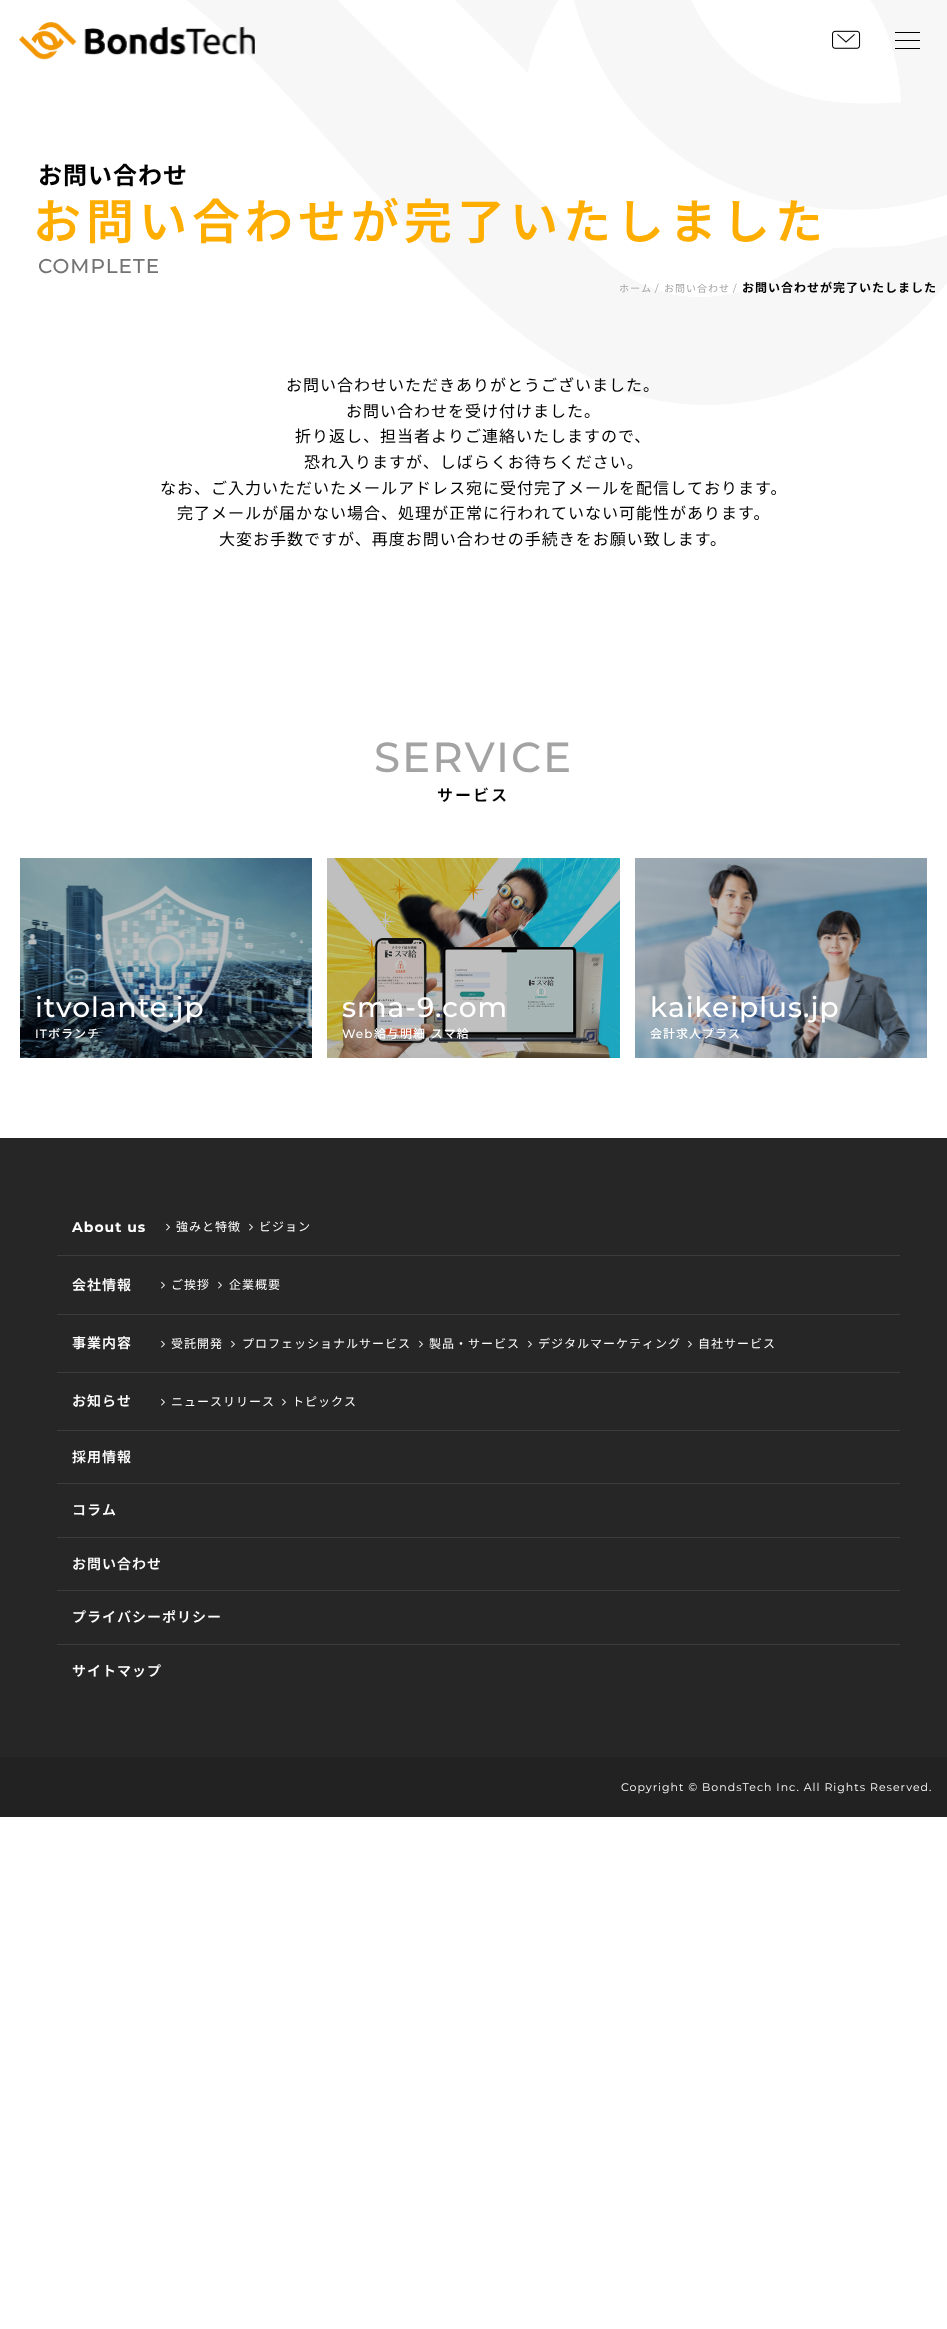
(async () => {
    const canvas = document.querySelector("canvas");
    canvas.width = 947;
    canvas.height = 2329;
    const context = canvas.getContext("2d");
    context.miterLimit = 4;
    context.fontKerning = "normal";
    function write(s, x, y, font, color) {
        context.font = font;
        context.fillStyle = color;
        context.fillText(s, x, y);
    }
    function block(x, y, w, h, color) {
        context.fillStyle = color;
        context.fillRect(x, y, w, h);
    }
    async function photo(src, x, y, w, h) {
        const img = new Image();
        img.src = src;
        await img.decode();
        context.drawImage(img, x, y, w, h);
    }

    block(0, 0, 947, 2329, "rgb(255, 255, 255)");
    await photo("media/3.png", 187, 0, 760, 405);
    await photo("media/1.png", 19, 22, 236, 38);
    await photo("media/2.png", 832, 30, 29, 19);
    block(895, 32, 25, 1, "rgb(0, 0, 0)");
    block(895, 40, 25, 1, "rgb(0, 0, 0)");
    block(895, 48, 25, 1, "rgb(0, 0, 0)");
    context.letterSpacing = "1px";
    write("お問い合わせ", 38, 184, "bold 24px Noto Sans JP", "rgb(0, 0, 0)");
    context.letterSpacing = "5px";
    write("お問い合わせが完了いたしました", 33, 239, "600 48px Noto Sans JP", "rgb(255, 174, 0)");
    context.letterSpacing = "1px";
    write("COMPLETE", 38, 273, "500 20px Montserrat", "rgb(115, 115, 115)");
    write("ホーム", 619, 292, "10px Noto Sans JP", "rgb(163, 163, 163)");
    write("/", 655, 292, "10px Montserrat", "rgb(163, 163, 163)");
    write("お問い合わせ", 664, 292, "10px Noto Sans JP", "rgb(163, 163, 163)");
    write("/", 733, 292, "10px Montserrat", "rgb(163, 163, 163)");
    write("お問い合わせが完了いたしました", 742, 292, "bold 12px Noto Sans JP", "rgb(0, 0, 0)");
    write("お問い合わせいただきありがとうございました。", 286, 391, "16px Noto Sans JP", "rgb(0, 0, 0)");
    write("お問い合わせを受け付けました。", 346, 417, "16px Noto Sans JP", "rgb(0, 0, 0)");
    write("折り返し、担当者よりご連絡いたしますので、", 295, 442, "16px Noto Sans JP", "rgb(0, 0, 0)");
    write("恐れ入りますが、しばらくお待ちください。", 304, 468, "16px Noto Sans JP", "rgb(0, 0, 0)");
    write("なお、ご入力いただいたメールアドレス宛に受付完了メールを配信しております。", 160, 494, "16px Noto Sans JP", "rgb(0, 0, 0)");
    write("完了メールが届かない場合、処理が正常に行われていない可能性があります。", 177, 519, "16px Noto Sans JP", "rgb(0, 0, 0)");
    write("大変お手数ですが、再度お問い合わせの手続きをお願い致します。", 219, 545, "16px Noto Sans JP", "rgb(0, 0, 0)");
    context.letterSpacing = "2px";
    write("SERVICE", 374, 772, "500 42px Montserrat", "rgb(163, 163, 163)");
    write("サービス", 437, 801, "600 16px Noto Sans JP", "rgb(0, 0, 0)");
    await photo("media/4.png", 20, 858, 292, 200);
    context.letterSpacing = "1px";
    write("itvolante.jp", 35, 1017, "500 28px Montserrat", "rgb(255, 255, 255)");
    write("IT", 35, 1038, "500 12px Montserrat", "rgb(255, 255, 255)");
    write("ボランチ", 48, 1038, "500 12px Noto Sans JP", "rgb(255, 255, 255)");
    await photo("media/5.png", 327, 858, 293, 200);
    write("sma-9.com", 342, 1017, "500 28px Montserrat", "rgb(255, 255, 255)");
    write("Web", 342, 1038, "500 12px Montserrat", "rgb(255, 255, 255)");
    context.wordSpacing = "1px";
    write("給与明細 スマ給", 374, 1038, "500 12px Noto Sans JP", "rgb(255, 255, 255)");
    await photo("media/6.png", 635, 858, 292, 200);
    context.wordSpacing = "0px";
    write("kaikeiplus.jp", 650, 1017, "500 28px Montserrat", "rgb(255, 255, 255)");
    write("会計求人プラス", 650, 1038, "500 12px Noto Sans JP", "rgb(255, 255, 255)");
    block(0, 1138, 947, 619, "rgb(38, 38, 38)");
    block(57, 1255, 843, 1, "rgb(60, 60, 60)");
    write("About us", 72, 1232, "bold 14px Montserrat", "rgb(255, 255, 255)");
    await photo("media/7.png", 166, 1223, 4, 8);
    write("強みと特徴", 176, 1231, "12px Noto Sans JP", "rgb(255, 255, 255)");
    await photo("media/7.png", 249, 1223, 4, 8);
    write("ビジョン", 259, 1231, "12px Noto Sans JP", "rgb(255, 255, 255)");
    block(57, 1314, 843, 1, "rgb(60, 60, 60)");
    write("会社情報", 72, 1290, "600 14px Noto Sans JP", "rgb(255, 255, 255)");
    await photo("media/7.png", 161, 1281, 4, 8);
    write("ご挨拶", 171, 1289, "12px Noto Sans JP", "rgb(255, 255, 255)");
    await photo("media/7.png", 218, 1281, 4, 8);
    write("企業概要", 229, 1289, "12px Noto Sans JP", "rgb(255, 255, 255)");
    block(57, 1372, 843, 1, "rgb(60, 60, 60)");
    write("事業内容", 72, 1348, "600 14px Noto Sans JP", "rgb(255, 255, 255)");
    await photo("media/7.png", 161, 1340, 4, 8);
    write("受託開発", 171, 1348, "12px Noto Sans JP", "rgb(255, 255, 255)");
    await photo("media/7.png", 231, 1340, 4, 8);
    write("プロフェッショナルサービス", 242, 1348, "12px Noto Sans JP", "rgb(255, 255, 255)");
    await photo("media/7.png", 419, 1340, 4, 8);
    write("製品・サービス", 429, 1348, "12px Noto Sans JP", "rgb(255, 255, 255)");
    await photo("media/7.png", 528, 1340, 4, 8);
    write("デジタルマーケティング", 538, 1348, "12px Noto Sans JP", "rgb(255, 255, 255)");
    await photo("media/7.png", 688, 1340, 4, 8);
    write("自社サービス", 698, 1348, "12px Noto Sans JP", "rgb(255, 255, 255)");
    block(57, 1430, 843, 1, "rgb(60, 60, 60)");
    write("お知らせ", 72, 1406, "600 14px Noto Sans JP", "rgb(255, 255, 255)");
    await photo("media/7.png", 161, 1398, 4, 8);
    write("ニュースリリース", 171, 1406, "12px Noto Sans JP", "rgb(255, 255, 255)");
    await photo("media/7.png", 282, 1398, 4, 8);
    write("トピックス", 292, 1406, "12px Noto Sans JP", "rgb(255, 255, 255)");
    block(57, 1483, 843, 1, "rgb(60, 60, 60)");
    write("採用情報", 72, 1462, "600 14px Noto Sans JP", "rgb(255, 255, 255)");
    block(57, 1537, 843, 1, "rgb(60, 60, 60)");
    write("コラム", 72, 1515, "600 14px Noto Sans JP", "rgb(255, 255, 255)");
    block(57, 1590, 843, 1, "rgb(60, 60, 60)");
    write("お問い合わせ", 72, 1569, "600 14px Noto Sans JP", "rgb(255, 255, 255)");
    block(57, 1644, 843, 1, "rgb(60, 60, 60)");
    write("プライバシーポリシー", 72, 1622, "600 14px Noto Sans JP", "rgb(255, 255, 255)");
    write("サイトマップ", 72, 1676, "600 14px Noto Sans JP", "rgb(255, 255, 255)");
    block(0, 1757, 947, 60, "rgb(34, 34, 34)");
    write("Copyright © BondsTech Inc. All Rights Reserved.", 621, 1791, "11px Montserrat", "rgb(255, 255, 255)");
})();
